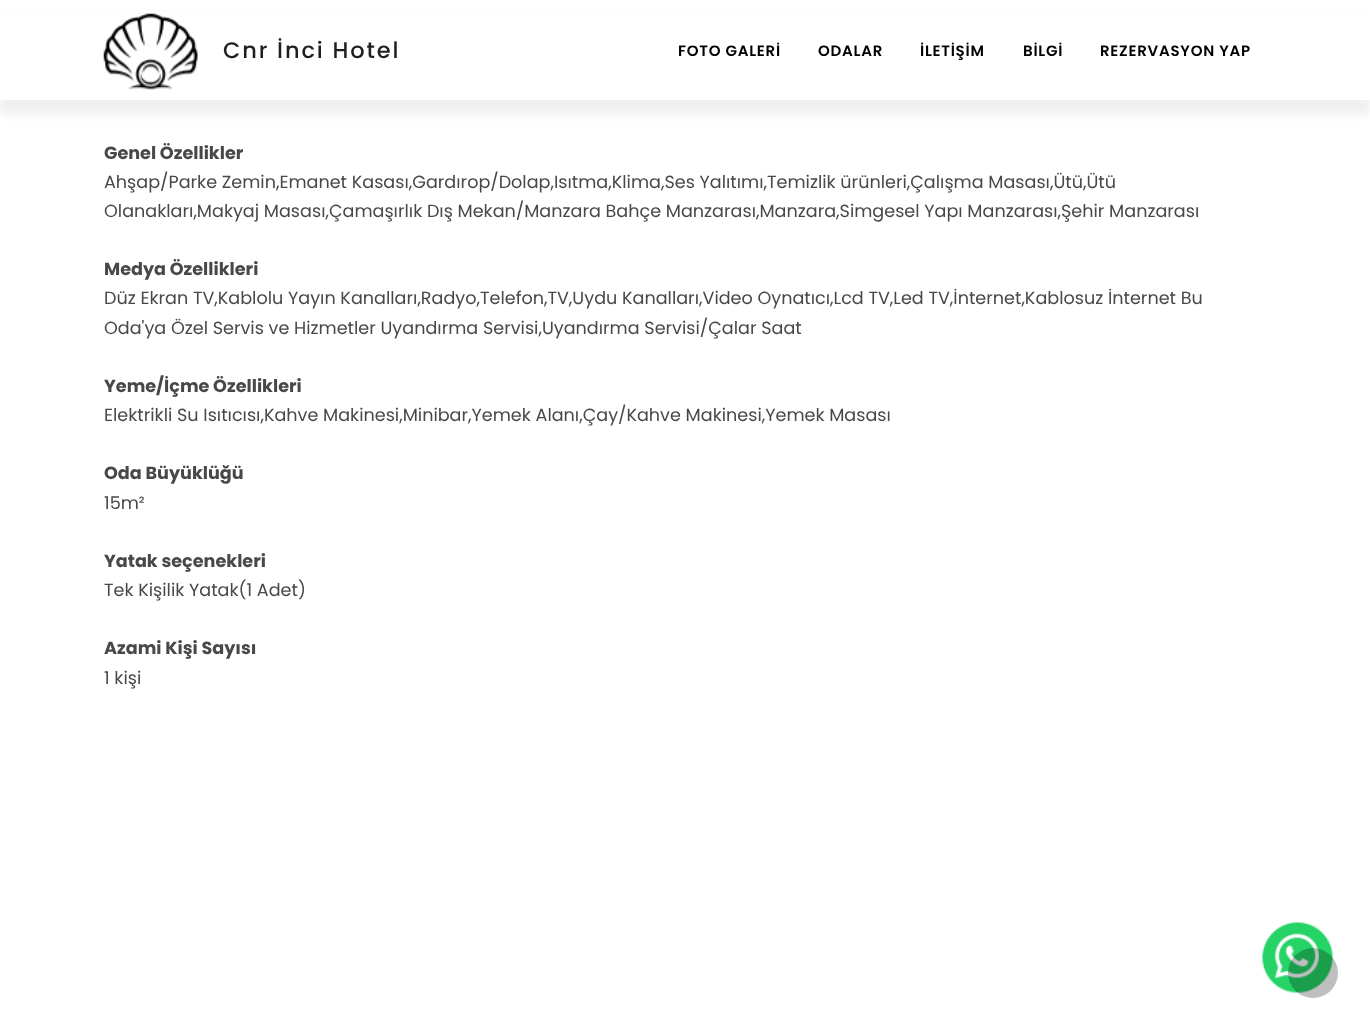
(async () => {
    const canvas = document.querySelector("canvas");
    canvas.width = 1370;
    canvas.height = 1030;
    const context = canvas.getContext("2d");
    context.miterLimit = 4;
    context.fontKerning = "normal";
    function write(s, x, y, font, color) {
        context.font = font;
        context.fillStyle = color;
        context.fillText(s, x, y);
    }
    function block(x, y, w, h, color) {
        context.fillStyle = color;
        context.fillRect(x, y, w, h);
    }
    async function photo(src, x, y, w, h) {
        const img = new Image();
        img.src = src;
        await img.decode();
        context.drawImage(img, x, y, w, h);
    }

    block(0, 0, 1370, 1030, "rgb(255, 255, 255)");
    context.fillStyle = "rgba(0, 0, 0, 0.06)";
    context.filter = "blur(4px)";
    context.beginPath();
    context.rect(0, 15, 1370, 100);
    context.fill();
    context.filter = "none";
    block(0, 11, 1370, 89, "rgb(255, 255, 255)");
    await photo("media/1.png", 103, 13, 95, 77);
    context.letterSpacing = "1.9px";
    write("Cnr İnci Hotel", 223, 58, "500 22.5px Poppins", "rgb(31, 31, 31)");
    context.letterSpacing = "0.75px";
    write("FOTO GALERİ", 678, 56, "600 15px Poppins", "rgb(0, 0, 0)");
    write("ODALAR", 818, 56, "600 15px Poppins", "rgb(0, 0, 0)");
    write("İLETİŞİM", 920, 56, "600 15px Poppins", "rgb(0, 0, 0)");
    write("BİLGİ", 1023, 56, "600 15px Poppins", "rgb(0, 0, 0)");
    write("REZERVASYON YAP", 1100, 56, "600 15px Poppins", "rgb(0, 0, 0)");
    context.letterSpacing = "0px";
    write("Genel Özellikler", 104, 159, "bold 17.6px Poppins", "rgb(72, 72, 72)");
    write("Ahşap/Parke Zemin,Emanet Kasası,Gardırop/Dolap,Isıtma,Klima,Ses Yalıtımı,Temizlik ürünleri,Çalışma Masası,Ütü,Ütü", 104, 188, "17.6px Poppins", "rgb(72, 72, 72)");
    write("Olanakları,Makyaj Masası,Çamaşırlık Dış Mekan/Manzara Bahçe Manzarası,Manzara,Simgesel Yapı Manzarası,Şehir Manzarası", 104, 217, "17.6px Poppins", "rgb(72, 72, 72)");
    write("Medya Özellikleri", 104, 275, "bold 17.6px Poppins", "rgb(72, 72, 72)");
    write("Düz Ekran TV,Kablolu Yayın Kanalları,Radyo,Telefon,TV,Uydu Kanalları,Video Oynatıcı,Lcd TV,Led TV,İnternet,Kablosuz İnternet Bu", 104, 304, "17.6px Poppins", "rgb(72, 72, 72)");
    write("Oda'ya Özel Servis ve Hizmetler Uyandırma Servisi,Uyandırma Servisi/Çalar Saat", 104, 334, "17.6px Poppins", "rgb(72, 72, 72)");
    write("Yeme/İçme Özellikleri", 104, 392, "bold 17.6px Poppins", "rgb(72, 72, 72)");
    write("Elektrikli Su Isıtıcısı,Kahve Makinesi,Minibar,Yemek Alanı,Çay/Kahve Makinesi,Yemek Masası", 104, 421, "17.6px Poppins", "rgb(72, 72, 72)");
    write("Oda Büyüklüğü", 104, 479, "bold 17.6px Poppins", "rgb(72, 72, 72)");
    write("15m²", 104, 509, "17.6px Poppins", "rgb(72, 72, 72)");
    write("Yatak seçenekleri", 104, 567, "bold 17.6px Poppins", "rgb(72, 72, 72)");
    write("Tek Kişilik Yatak(1 Adet)", 104, 596, "17.6px Poppins", "rgb(72, 72, 72)");
    write("Azami Kişi Sayısı", 104, 654, "bold 17.6px Poppins", "rgb(72, 72, 72)");
    write("1 kişi", 104, 684, "17.6px Poppins", "rgb(72, 72, 72)");
    await photo("media/2.png", 1262, 922, 71, 71);
    context.fillStyle = "rgba(0, 0, 0, 0.25)";
    context.beginPath();
    context.arc(1313, 973, 25, 0, Math.PI * 2);
    context.fill();
})();
